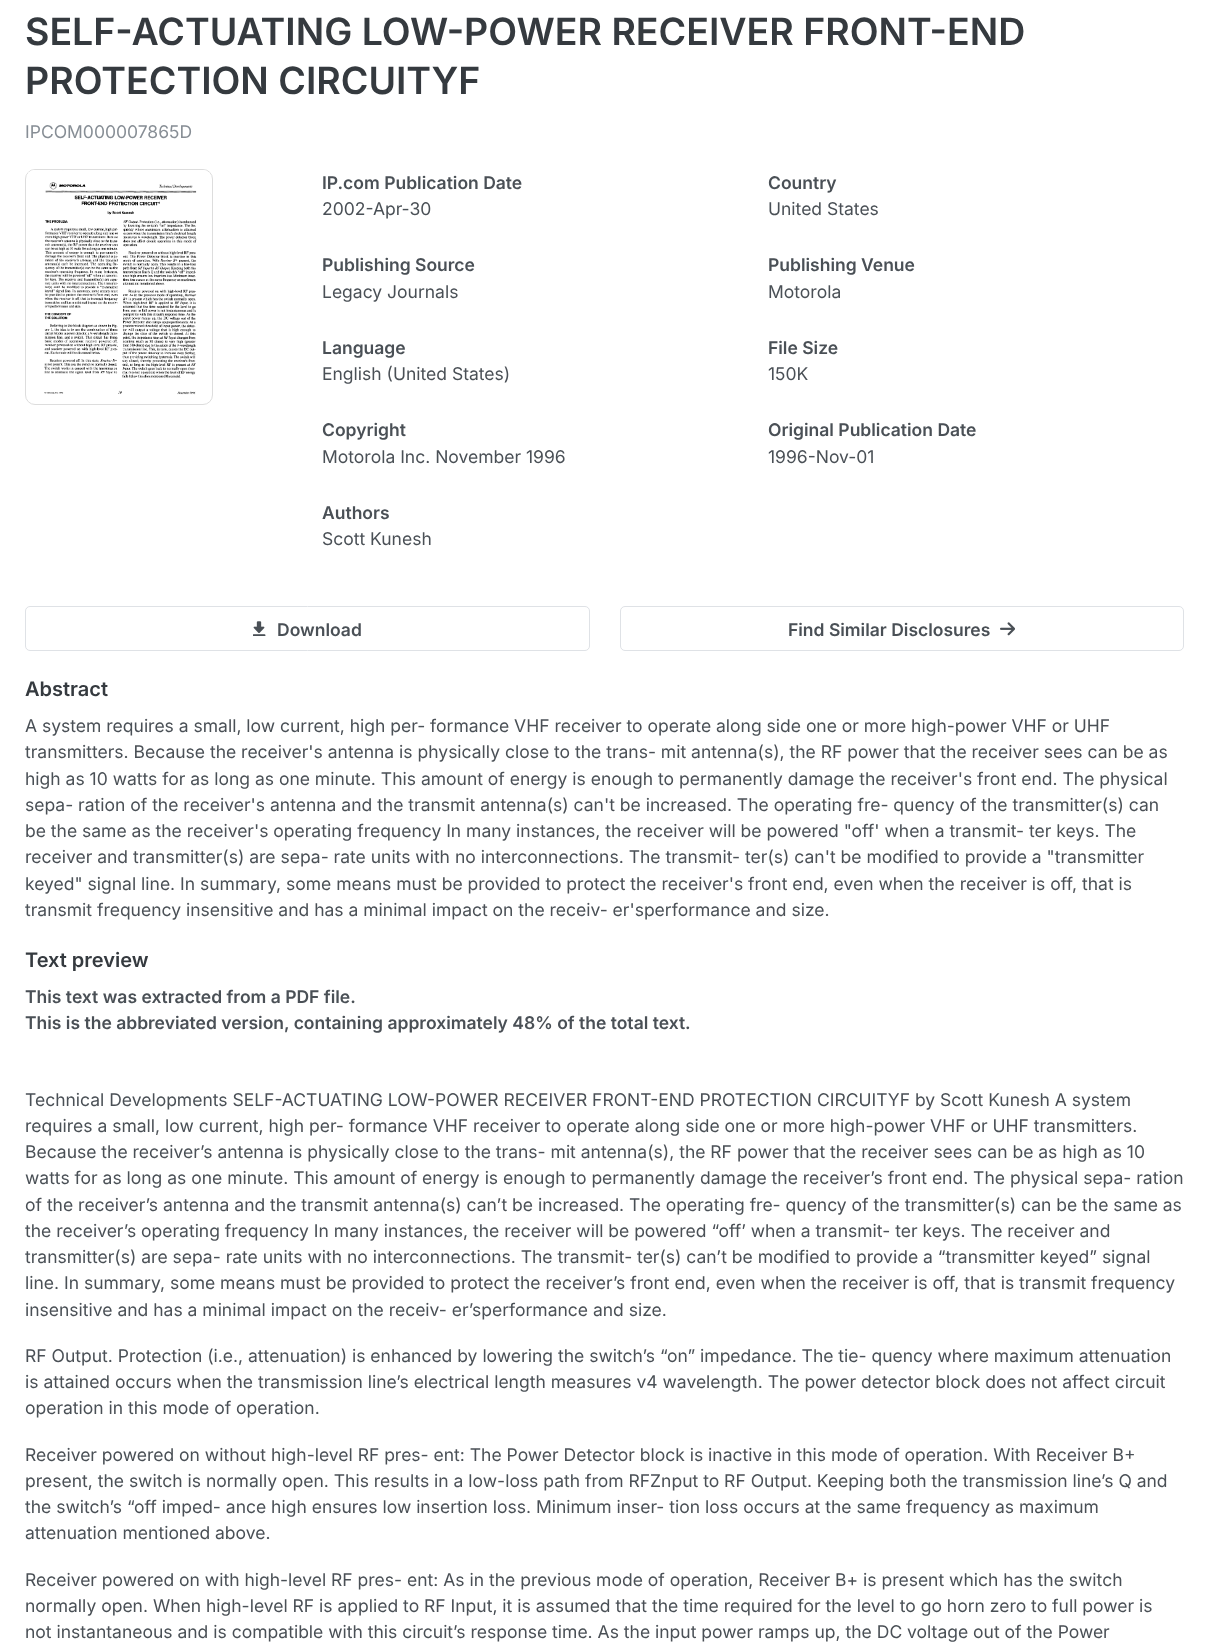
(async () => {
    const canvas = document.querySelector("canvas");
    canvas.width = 1208;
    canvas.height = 1646;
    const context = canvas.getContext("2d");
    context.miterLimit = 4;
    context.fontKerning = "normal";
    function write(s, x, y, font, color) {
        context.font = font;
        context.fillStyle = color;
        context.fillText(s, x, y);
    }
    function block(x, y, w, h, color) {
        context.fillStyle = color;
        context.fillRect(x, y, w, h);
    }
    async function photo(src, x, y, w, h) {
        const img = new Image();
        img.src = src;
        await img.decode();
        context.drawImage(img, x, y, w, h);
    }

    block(0, 0, 1208, 1646, "rgb(255, 255, 255)");
    write("SELF-ACTUATING LOW-POWER RECEIVER FRONT-END", 25, 45, "600 37.5px Inter", "rgb(53, 58, 63)");
    write("PROTECTION CIRCUITYF", 25, 94, "600 37.5px Inter", "rgb(53, 58, 63)");
    write("IPCOM000007865D", 25, 138, "17.5px Inter", "rgb(135, 142, 149)");
    context.beginPath();
    context.roundRect(25.5, 169.5, 187, 235, 9.5);
    context.strokeStyle = "rgb(221, 221, 221)";
    context.stroke();
    await photo("media/1.png", 27, 170, 183, 225);
    write("IP.com Publication Date", 322, 189, "600 17.5px Inter", "rgb(74, 80, 86)");
    write("2002-Apr-30", 322, 215, "17.5px Inter", "rgb(74, 80, 86)");
    write("Country", 768, 189, "600 17.5px Inter", "rgb(74, 80, 86)");
    write("United States", 768, 215, "17.5px Inter", "rgb(74, 80, 86)");
    write("Publishing Source", 322, 271, "600 17.5px Inter", "rgb(74, 80, 86)");
    write("Legacy Journals", 322, 298, "17.5px Inter", "rgb(74, 80, 86)");
    write("Publishing Venue", 768, 271, "600 17.5px Inter", "rgb(74, 80, 86)");
    write("Motorola", 768, 298, "17.5px Inter", "rgb(74, 80, 86)");
    write("Language", 322, 354, "600 17.5px Inter", "rgb(74, 80, 86)");
    write("English (United States)", 322, 380, "17.5px Inter", "rgb(74, 80, 86)");
    write("File Size", 768, 354, "600 17.5px Inter", "rgb(74, 80, 86)");
    write("150K", 768, 380, "17.5px Inter", "rgb(74, 80, 86)");
    write("Copyright", 322, 436, "600 17.5px Inter", "rgb(74, 80, 86)");
    write("Motorola Inc. November 1996", 322, 463, "17.5px Inter", "rgb(74, 80, 86)");
    write("Original Publication Date", 768, 436, "600 17.5px Inter", "rgb(74, 80, 86)");
    write("1996-Nov-01", 768, 463, "17.5px Inter", "rgb(74, 80, 86)");
    write("Authors", 322, 519, "600 17.5px Inter", "rgb(74, 80, 86)");
    write("Scott Kunesh", 322, 545, "17.5px Inter", "rgb(74, 80, 86)");
    context.beginPath();
    context.roundRect(25.5, 606.5, 564, 44, 4.5);
    context.strokeStyle = "rgb(223, 226, 230)";
    context.stroke();
    await photo("media/2.png", 253, 621, 13, 15);
    write("Download", 277, 636, "600 17.5px Inter", "rgb(74, 80, 86)");
    context.beginPath();
    context.roundRect(620.5, 606.5, 563, 44, 4.5);
    context.stroke();
    write("Find Similar Disclosures", 788, 636, "600 17.5px Inter", "rgb(74, 80, 86)");
    await photo("media/3.png", 1000, 622, 15, 14);
    write("Abstract", 25, 696, "600 20px Inter", "rgb(53, 58, 63)");
    write("A system requires a small, low current, high per- formance VHF receiver to operate along side one or more high-power VHF or UHF", 25, 732, "17.5px Inter", "rgb(74, 80, 86)");
    write("transmitters. Because the receiver's antenna is physically close to the trans- mit antenna(s), the RF power that the receiver sees can be as", 25, 758, "17.5px Inter", "rgb(74, 80, 86)");
    write("high as 10 watts for as long as one minute. This amount of energy is enough to permanently damage the receiver's front end. The physical", 25, 785, "17.5px Inter", "rgb(74, 80, 86)");
    write("sepa- ration of the receiver's antenna and the transmit antenna(s) can't be increased. The operating fre- quency of the transmitter(s) can", 25, 811, "17.5px Inter", "rgb(74, 80, 86)");
    write("be the same as the receiver's operating frequency In many instances, the receiver will be powered \"off' when a transmit- ter keys. The", 25, 837, "17.5px Inter", "rgb(74, 80, 86)");
    write("receiver and transmitter(s) are sepa- rate units with no interconnections. The transmit- ter(s) can't be modified to provide a \"transmitter", 25, 863, "17.5px Inter", "rgb(74, 80, 86)");
    write("keyed\" signal line. In summary, some means must be provided to protect the receiver's front end, even when the receiver is off, that is", 25, 890, "17.5px Inter", "rgb(74, 80, 86)");
    write("transmit frequency insensitive and has a minimal impact on the receiv- er'sperformance and size.", 25, 916, "17.5px Inter", "rgb(74, 80, 86)");
    write("Text preview", 25, 967, "600 20px Inter", "rgb(53, 58, 63)");
    write("This text was extracted from a PDF file.", 25, 1003, "600 17.5px Inter", "rgb(74, 80, 86)");
    write("This is the abbreviated version, containing approximately 48% of the total text.", 25, 1029, "600 17.5px Inter", "rgb(74, 80, 86)");
    write("Technical Developments SELF-ACTUATING LOW-POWER RECEIVER FRONT-END PROTECTION CIRCUITYF by Scott Kunesh A system", 25, 1106, "17.5px Inter", "rgb(74, 80, 86)");
    write("requires a small, low current, high per- formance VHF receiver to operate along side one or more high-power VHF or UHF transmitters.", 25, 1132, "17.5px Inter", "rgb(74, 80, 86)");
    write("Because the receiver’s antenna is physically close to the trans- mit antenna(s), the RF power that the receiver sees can be as high as 10", 25, 1158, "17.5px Inter", "rgb(74, 80, 86)");
    write("watts for as long as one minute. This amount of energy is enough to permanently damage the receiver’s front end. The physical sepa- ration", 25, 1184, "17.5px Inter", "rgb(74, 80, 86)");
    write("of the receiver’s antenna and the transmit antenna(s) can’t be increased. The operating fre- quency of the transmitter(s) can be the same as", 25, 1211, "17.5px Inter", "rgb(74, 80, 86)");
    write("the receiver’s operating frequency In many instances, the receiver will be powered “off’ when a transmit- ter keys. The receiver and", 25, 1237, "17.5px Inter", "rgb(74, 80, 86)");
    write("transmitter(s) are sepa- rate units with no interconnections. The transmit- ter(s) can’t be modified to provide a “transmitter keyed” signal", 25, 1263, "17.5px Inter", "rgb(74, 80, 86)");
    write("line. In summary, some means must be provided to protect the receiver’s front end, even when the receiver is off, that is transmit frequency", 25, 1289, "17.5px Inter", "rgb(74, 80, 86)");
    write("insensitive and has a minimal impact on the receiv- er’sperformance and size.", 25, 1316, "17.5px Inter", "rgb(74, 80, 86)");
    write("RF Output. Protection (i.e., attenuation) is enhanced by lowering the switch’s “on” impedance. The tie- quency where maximum attenuation", 25, 1362, "17.5px Inter", "rgb(74, 80, 86)");
    write("is attained occurs when the transmission line’s electrical length measures v4 wavelength. The power detector block does not affect circuit", 25, 1388, "17.5px Inter", "rgb(74, 80, 86)");
    write("operation in this mode of operation.", 25, 1414, "17.5px Inter", "rgb(74, 80, 86)");
    write("Receiver powered on without high-level RF pres- ent: The Power Detector block is inactive in this mode of operation. With Receiver B+", 25, 1461, "17.5px Inter", "rgb(74, 80, 86)");
    write("present, the switch is normally open. This results in a low-loss path from RFZnput to RF Output. Keeping both the transmission line’s Q and", 25, 1487, "17.5px Inter", "rgb(74, 80, 86)");
    write("the switch’s “off imped- ance high ensures low insertion loss. Minimum inser- tion loss occurs at the same frequency as maximum", 25, 1513, "17.5px Inter", "rgb(74, 80, 86)");
    write("attenuation mentioned above.", 25, 1539, "17.5px Inter", "rgb(74, 80, 86)");
    write("Receiver powered on with high-level RF pres- ent: As in the previous mode of operation, Receiver B+ is present which has the switch", 25, 1586, "17.5px Inter", "rgb(74, 80, 86)");
    write("normally open. When high-level RF is applied to RF Input, it is assumed that the time required for the level to go horn zero to full power is", 25, 1612, "17.5px Inter", "rgb(74, 80, 86)");
    write("not instantaneous and is compatible with this circuit’s response time. As the input power ramps up, the DC voltage out of the Power", 25, 1638, "17.5px Inter", "rgb(74, 80, 86)");
})();
